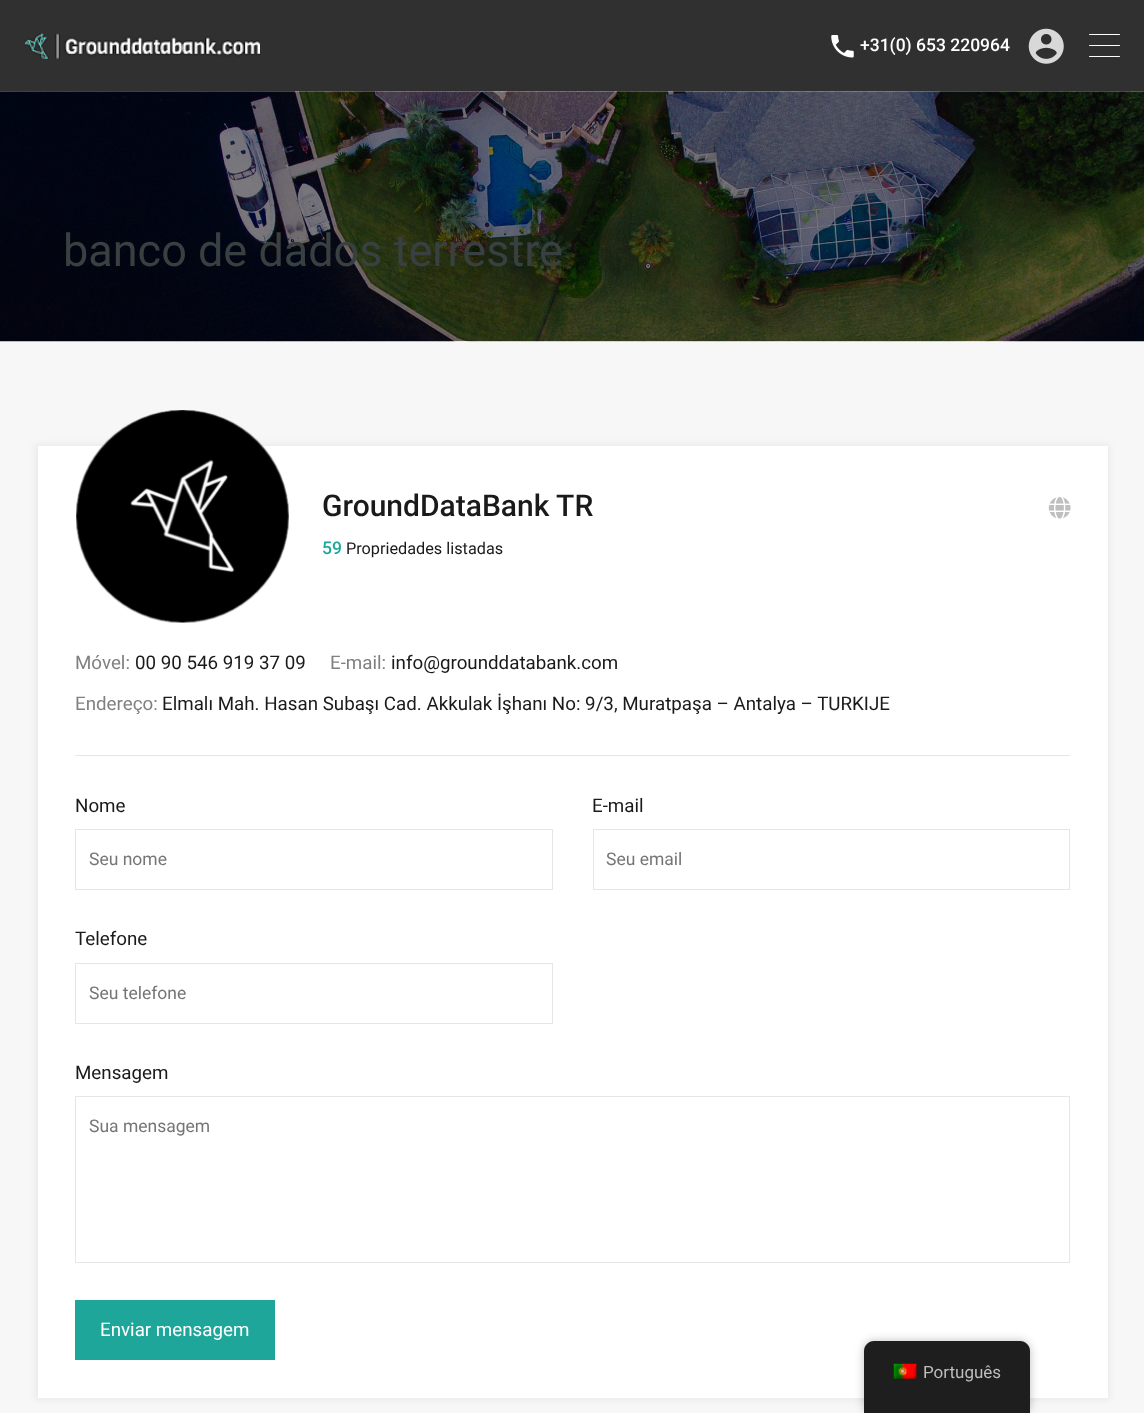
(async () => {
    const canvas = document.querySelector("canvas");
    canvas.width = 1144;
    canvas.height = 1413;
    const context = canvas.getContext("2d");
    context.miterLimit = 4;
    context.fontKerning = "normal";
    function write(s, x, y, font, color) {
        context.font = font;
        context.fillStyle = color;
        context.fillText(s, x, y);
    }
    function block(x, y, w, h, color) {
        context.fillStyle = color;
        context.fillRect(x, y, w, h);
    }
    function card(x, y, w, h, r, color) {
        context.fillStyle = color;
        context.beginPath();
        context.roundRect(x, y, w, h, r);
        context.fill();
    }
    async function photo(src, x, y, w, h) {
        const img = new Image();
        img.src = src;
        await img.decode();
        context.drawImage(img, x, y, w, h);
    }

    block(0, 0, 1144, 1413, "rgb(247, 247, 247)");
    block(0, 0, 1144, 91, "rgb(48, 48, 48)");
    await photo("media/1.png", 25, 33, 235, 26);
    await photo("media/2.png", 831, 35, 23, 23);
    write("+31(0) 653 220964", 860, 51, "500 17.5px Roboto", "rgb(255, 255, 255)");
    await photo("media/3.png", 1028, 28, 36, 36);
    card(1089, 45, 31, 1, 0.5, "rgb(255, 255, 255)");
    card(1089, 34, 31, 1, 0.5, "rgb(255, 255, 255)");
    card(1089, 56, 31, 1, 0.5, "rgb(255, 255, 255)");
    await photo("media/4.png", 0, 91, 1144, 251);
    write("banco de dados terrestre", 63, 266, "45px Roboto", "rgb(57, 64, 65)");
    context.fillStyle = "rgba(0, 0, 0, 0.05)";
    context.filter = "blur(3px)";
    context.beginPath();
    context.rect(35, 444, 1075, 956);
    context.fill();
    context.filter = "none";
    block(38, 446, 1070, 952, "rgb(255, 255, 255)");
    await photo("media/5.png", 76, 410, 213, 213);
    write("GroundDataBank TR", 322, 516, "500 30px Roboto", "rgb(26, 26, 26)");
    write("59", 322, 554, "500 17.5px Roboto", "rgb(30, 166, 154)");
    write("Propriedades listadas", 346, 554, "16.25px Roboto", "rgb(26, 26, 26)");
    await photo("media/6.png", 1048, 497, 23, 22);
    write("Móvel:", 75, 669, "18.75px Roboto", "rgb(128, 128, 128)");
    write("00 90 546 919 37 09", 135, 669, "18.75px Roboto", "rgb(26, 26, 26)");
    write("E-mail:", 330, 669, "18.75px Roboto", "rgb(128, 128, 128)");
    write("info@grounddatabank.com", 391, 669, "18.75px Roboto", "rgb(26, 26, 26)");
    write("Endereço:", 75, 710, "18.75px Roboto", "rgb(128, 128, 128)");
    write("Elmalı Mah. Hasan Subaşı Cad. Akkulak İşhanı No: 9/3, Muratpaşa – Antalya – TURKIJE", 162, 710, "18.75px Roboto", "rgb(26, 26, 26)");
    block(75, 755, 995, 1, "rgb(230, 230, 230)");
    write("Nome", 75, 812, "18.75px Roboto", "rgb(26, 26, 26)");
    context.strokeStyle = "rgb(230, 230, 230)";
    context.strokeRect(75.5, 829.5, 477, 60);
    write("Seu nome", 89, 865, "17.5px Roboto", "rgb(117, 117, 117)");
    write("E-mail", 592, 812, "18.75px Roboto", "rgb(26, 26, 26)");
    context.strokeRect(593.5, 829.5, 476, 60);
    write("Seu email", 606, 865, "17.5px Roboto", "rgb(117, 117, 117)");
    write("Telefone", 75, 945, "18.75px Roboto", "rgb(26, 26, 26)");
    context.strokeRect(75.5, 963.5, 477, 60);
    write("Seu telefone", 89, 999, "17.5px Roboto", "rgb(117, 117, 117)");
    write("Mensagem", 75, 1079, "18.75px Roboto", "rgb(26, 26, 26)");
    context.strokeRect(75.5, 1096.5, 994, 166);
    write("Sua mensagem", 89, 1132, "17.5px Roboto", "rgb(117, 117, 117)");
    block(75, 1300, 200, 60, "rgb(30, 166, 154)");
    write("Enviar mensagem", 100, 1336, "18.75px Roboto", "rgb(255, 255, 255)");
    context.fillStyle = "rgba(0, 0, 0, 0.25)";
    context.filter = "blur(5px)";
    context.beginPath();
    context.roundRect(864, 1341, 166, 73, 10);
    context.fill();
    context.filter = "none";
    context.fillStyle = "rgb(30, 30, 30)";
    context.beginPath();
    context.moveTo(874, 1341);
    context.lineTo(1020, 1341);
    context.bezierCurveTo(1025.5, 1341, 1030, 1345.5, 1030, 1351);
    context.lineTo(1030, 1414);
    context.lineTo(864, 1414);
    context.lineTo(864, 1351);
    context.bezierCurveTo(864, 1345.5, 868.5, 1341, 874, 1341);
    context.closePath();
    context.fill();
    await photo("media/7.png", 893, 1363, 24, 16);
    write("Português", 923, 1378, "17px Roboto", "rgb(189, 189, 189)");
})();
